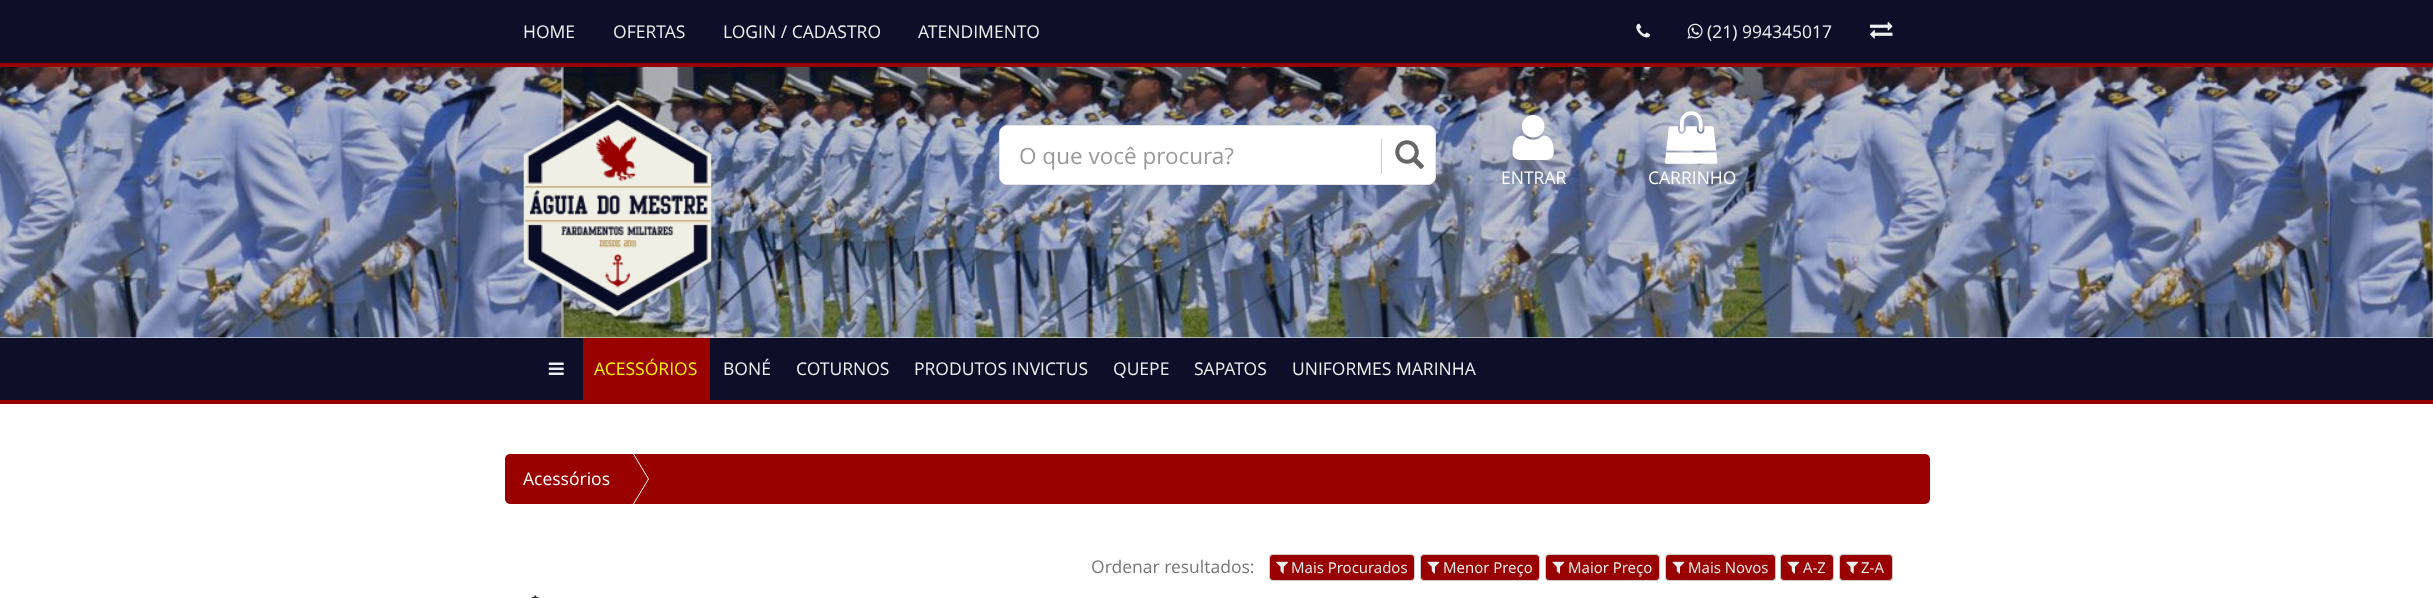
(async () => {
    const canvas = document.querySelector("canvas");
    canvas.width = 2433;
    canvas.height = 598;
    const context = canvas.getContext("2d");
    context.miterLimit = 4;
    context.fontKerning = "normal";
    function write(s, x, y, font, color) {
        context.font = font;
        context.fillStyle = color;
        context.fillText(s, x, y);
    }
    function block(x, y, w, h, color) {
        context.fillStyle = color;
        context.fillRect(x, y, w, h);
    }
    function card(x, y, w, h, r, color) {
        context.fillStyle = color;
        context.beginPath();
        context.roundRect(x, y, w, h, r);
        context.fill();
    }
    async function photo(src, x, y, w, h) {
        const img = new Image();
        img.src = src;
        await img.decode();
        context.drawImage(img, x, y, w, h);
    }

    block(0, 0, 2433, 598, "rgb(255, 255, 255)");
    block(0, 0, 2433, 63, "rgb(12, 15, 39)");
    block(0, 63, 2433, 4, "rgb(153, 0, 0)");
    write("HOME", 523, 38, "17.5px Open Sans", "rgb(236, 240, 241)");
    write("OFERTAS", 613, 38, "17.5px Open Sans", "rgb(236, 240, 241)");
    write("LOGIN / CADASTRO", 723, 38, "17.5px Open Sans", "rgb(236, 240, 241)");
    write("ATENDIMENTO", 918, 38, "17.5px Open Sans", "rgb(236, 240, 241)");
    await photo("media/1.png", 1636, 23, 14, 15);
    await photo("media/2.png", 1687, 23, 16, 16);
    write("(21) 994345017", 1707, 38, "17.5px Open Sans", "rgb(236, 240, 241)");
    await photo("media/3.png", 1870, 21, 23, 18);
    await photo("media/4.png", 0, 67, 2433, 271);
    await photo("media/5.png", 523, 100, 189, 217);
    context.fillStyle = "rgb(255, 255, 255)";
    context.beginPath();
    context.roundRect(999.5, 125.5, 436, 59, 7.5);
    context.fill();
    context.strokeStyle = "rgb(228, 228, 228)";
    context.stroke();
    context.beginPath();
    context.roundRect(1000, 126, 381, 58, [8, 0, 0, 8]);
    context.fill();
    write("O que você procura?", 1019, 164, "22.5px Open Sans", "rgb(153, 153, 153)");
    block(1381, 139, 1, 35, "rgb(204, 204, 204)");
    await photo("media/6.png", 1395, 140, 29, 29);
    await photo("media/7.png", 1512, 115, 42, 45);
    write("ENTRAR", 1501, 184, "17.5px Open Sans", "rgb(255, 255, 255)");
    await photo("media/8.png", 1665, 111, 53, 53);
    write("CARRINHO", 1648, 184, "17.5px Open Sans", "rgb(255, 255, 255)");
    block(0, 338, 2433, 62, "rgb(12, 15, 39)");
    block(0, 400, 2433, 4, "rgb(153, 0, 0)");
    await photo("media/9.png", 548, 362, 16, 13);
    block(583, 338, 127, 62, "rgb(153, 0, 0)");
    write("ACESSÓRIOS", 594, 375, "17.5px Open Sans", "rgb(255, 245, 0)");
    write("BONÉ", 723, 375, "17.5px Open Sans", "rgb(236, 240, 241)");
    write("COTURNOS", 796, 375, "17.5px Open Sans", "rgb(236, 240, 241)");
    write("PRODUTOS INVICTUS", 914, 375, "17.5px Open Sans", "rgb(236, 240, 241)");
    write("QUEPE", 1113, 375, "17.5px Open Sans", "rgb(236, 240, 241)");
    write("SAPATOS", 1194, 375, "17.5px Open Sans", "rgb(236, 240, 241)");
    write("UNIFORMES MARINHA", 1292, 375, "17.5px Open Sans", "rgb(236, 240, 241)");
    card(505, 454, 1425, 50, 5, "rgb(153, 0, 0)");
    context.fillStyle = "rgb(255, 255, 255)";
    context.beginPath();
    context.moveTo(634, 454);
    context.lineTo(649, 479);
    context.lineTo(634, 504);
    context.lineTo(611, 504);
    context.lineTo(611, 454);
    context.closePath();
    context.fill();
    context.fillStyle = "rgb(153, 0, 0)";
    context.beginPath();
    context.moveTo(633, 454);
    context.lineTo(648, 479);
    context.lineTo(633, 504);
    context.lineTo(610, 504);
    context.lineTo(610, 454);
    context.closePath();
    context.fill();
    write("Acessórios", 523, 485, "17.5px Open Sans", "rgb(255, 255, 255)");
    write("Ordenar resultados:", 1091, 573, "17.5px Open Sans", "rgb(119, 119, 119)");
    context.fillStyle = "rgb(153, 0, 0)";
    context.beginPath();
    context.roundRect(1269.5, 554.5, 145, 26, 3.5);
    context.fill();
    context.strokeStyle = "rgb(204, 204, 204)";
    context.stroke();
    await photo("media/10.png", 1276, 561, 12, 13);
    write("Mais Procurados", 1291, 573, "15px Open Sans", "rgb(236, 240, 241)");
    context.fillStyle = "rgb(153, 0, 0)";
    context.beginPath();
    context.roundRect(1420.5, 554.5, 119, 26, 3.5);
    context.fill();
    context.stroke();
    await photo("media/11.png", 1427, 561, 13, 13);
    write("Menor Preço", 1443, 573, "15px Open Sans", "rgb(236, 240, 241)");
    context.fillStyle = "rgb(153, 0, 0)";
    context.beginPath();
    context.roundRect(1545.5, 554.5, 114, 26, 3.5);
    context.fill();
    context.stroke();
    await photo("media/11.png", 1552, 561, 13, 13);
    write("Maior Preço", 1568, 573, "15px Open Sans", "rgb(236, 240, 241)");
    context.fillStyle = "rgb(153, 0, 0)";
    context.beginPath();
    context.roundRect(1665.5, 554.5, 110, 26, 3.5);
    context.fill();
    context.stroke();
    await photo("media/11.png", 1672, 561, 13, 13);
    write("Mais Novos", 1688, 573, "15px Open Sans", "rgb(236, 240, 241)");
    context.fillStyle = "rgb(153, 0, 0)";
    context.beginPath();
    context.roundRect(1780.5, 554.5, 53, 26, 3.5);
    context.fill();
    context.stroke();
    await photo("media/11.png", 1787, 561, 13, 13);
    write("A-Z", 1803, 573, "15px Open Sans", "rgb(236, 240, 241)");
    context.fillStyle = "rgb(153, 0, 0)";
    context.beginPath();
    context.roundRect(1839.5, 554.5, 53, 26, 3.5);
    context.fill();
    context.stroke();
    await photo("media/10.png", 1846, 561, 12, 13);
    write("Z-A", 1861, 573, "15px Open Sans", "rgb(236, 240, 241)");
    await photo("media/12.png", 531, 595, 9, 3);
})();
